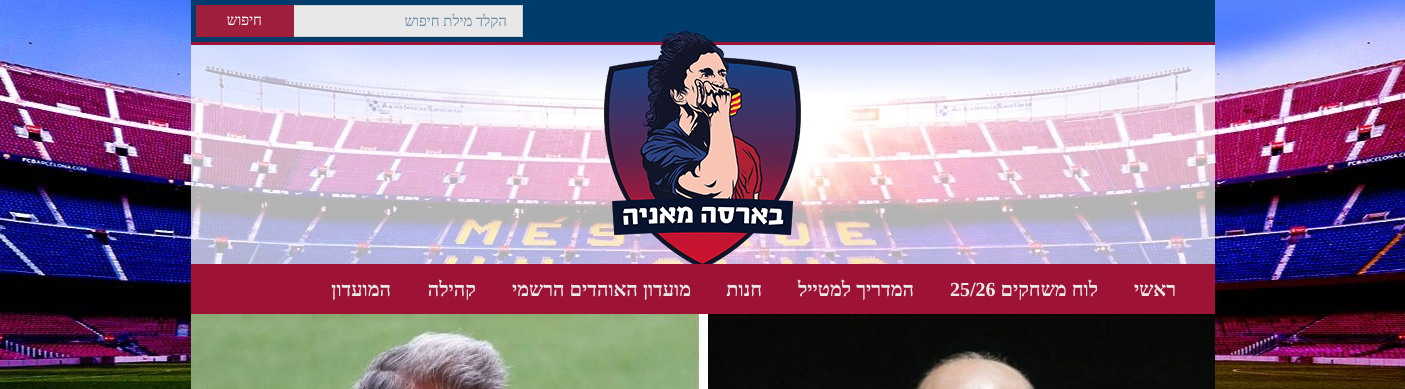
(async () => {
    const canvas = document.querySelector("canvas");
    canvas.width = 1405;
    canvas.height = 389;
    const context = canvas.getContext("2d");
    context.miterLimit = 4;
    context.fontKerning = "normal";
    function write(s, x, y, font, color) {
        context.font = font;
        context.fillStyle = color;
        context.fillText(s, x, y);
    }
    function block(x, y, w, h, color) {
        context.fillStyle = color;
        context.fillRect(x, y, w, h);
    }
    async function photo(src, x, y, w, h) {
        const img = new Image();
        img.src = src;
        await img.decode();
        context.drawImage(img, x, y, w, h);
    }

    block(0, 0, 1405, 389, "rgb(255, 255, 255)");
    await photo("media/1.png", 0, 0, 1405, 389);
    block(191, 0, 1024, 42, "rgb(0, 60, 107)");
    block(191, 42, 1024, 3, "rgb(158, 19, 53)");
    block(294, 5, 229, 32, "rgb(232, 232, 232)");
    context.fillStyle = "rgb(209, 209, 209)";
    context.beginPath();
    context.moveTo(294, 5);
    context.lineTo(523, 5);
    context.lineTo(522, 6);
    context.lineTo(294, 6);
    context.closePath();
    context.fill();
    context.fillStyle = "rgb(202, 202, 202)";
    context.beginPath();
    context.moveTo(523, 5);
    context.lineTo(523, 37);
    context.lineTo(522, 36);
    context.lineTo(522, 6);
    context.closePath();
    context.fill();
    context.fillStyle = "rgba(0, 0, 0, 0.1)";
    context.beginPath();
    context.moveTo(523, 37);
    context.lineTo(294, 37);
    context.lineTo(294, 36);
    context.lineTo(522, 36);
    context.closePath();
    context.fill();
    context.direction = "rtl";
    write("הקלד מילת חיפוש", 507, 26, "15px Liberation Serif", "rgb(107, 139, 165)");
    block(196, 5, 98, 32, "rgb(158, 30, 60)");
    write("חיפוש", 262, 25, "15px Liberation Serif", "rgb(255, 255, 255)");
    block(191, 45, 1024, 219, "rgba(255, 255, 255, 0.7)");
    await photo("media/2.png", 604, 31, 197, 233);
    block(191, 264, 1024, 50, "rgb(158, 19, 53)");
    write("ראשי", 1176, 296, "bold 20px Liberation Serif", "rgb(232, 232, 232)");
    write("לוח משחקים", 1098, 296, "bold 20px Liberation Serif", "rgb(232, 232, 232)");
    context.direction = "ltr";
    write("25/26", 950, 296, "bold 20px Liberation Serif", "rgb(232, 232, 232)");
    context.direction = "rtl";
    write("המדריך למטייל", 914, 296, "bold 20px Liberation Serif", "rgb(232, 232, 232)");
    write("חנות", 762, 296, "bold 20px Liberation Serif", "rgb(232, 232, 232)");
    write("מועדון האוהדים הרשמי", 691, 296, "bold 20px Liberation Serif", "rgb(232, 232, 232)");
    write("קהילה", 476, 296, "bold 20px Liberation Serif", "rgb(232, 232, 232)");
    write("המועדון", 391, 296, "bold 20px Liberation Serif", "rgb(232, 232, 232)");
    await photo("media/3.png", 191, 314, 1024, 75);
})();
